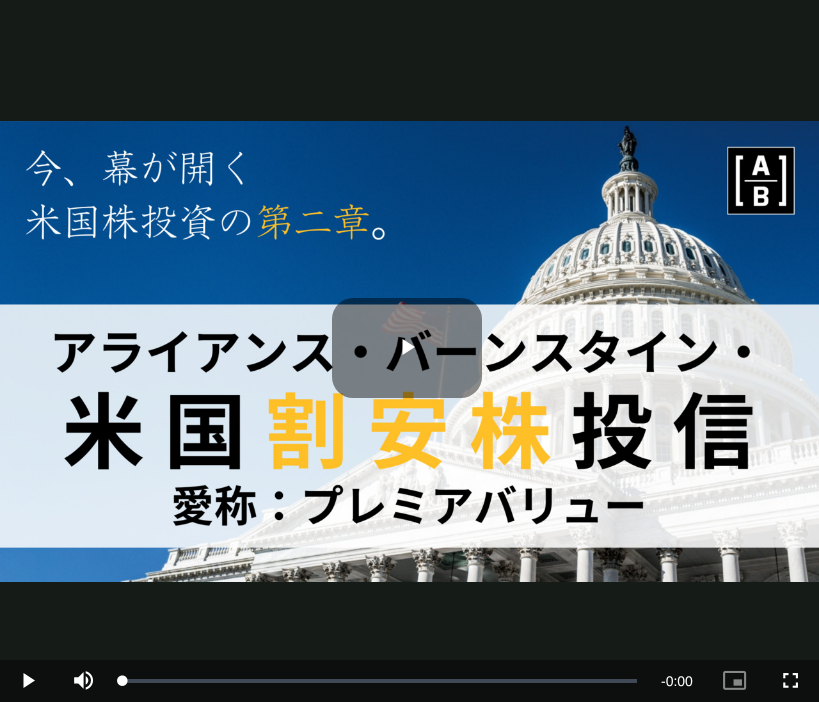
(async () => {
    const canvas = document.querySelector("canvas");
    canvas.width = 819;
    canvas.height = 702;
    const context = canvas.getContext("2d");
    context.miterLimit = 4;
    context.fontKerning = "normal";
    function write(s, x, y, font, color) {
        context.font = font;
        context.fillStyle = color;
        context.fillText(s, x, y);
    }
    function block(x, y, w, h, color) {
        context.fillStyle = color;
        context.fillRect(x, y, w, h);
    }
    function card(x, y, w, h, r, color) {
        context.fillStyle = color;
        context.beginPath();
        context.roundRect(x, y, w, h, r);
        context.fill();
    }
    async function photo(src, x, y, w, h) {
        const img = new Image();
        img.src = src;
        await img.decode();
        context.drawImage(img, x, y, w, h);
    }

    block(0, 0, 819, 702, "rgb(21, 27, 23)");
    await photo("media/1.png", 0, 121, 819, 461);
    card(332, 298, 150, 100, 21, "rgba(0, 0, 0, 0.45)");
    context.fillStyle = "rgb(255, 255, 255)";
    context.beginPath();
    context.moveTo(402.5, 339);
    context.lineTo(402.5, 355);
    context.lineTo(415, 347);
    context.closePath();
    context.fill();
    block(0, 660, 819, 42, "rgb(12, 15, 13)");
    context.fillStyle = "rgb(255, 255, 255)";
    context.beginPath();
    context.moveTo(23.5, 673);
    context.lineTo(23.5, 688);
    context.lineTo(35, 680.5);
    context.closePath();
    context.fill();
    await photo("media/2.png", 74, 671, 20, 19);
    block(122, 679, 515, 4, "rgb(64, 74, 86)");
    await photo("media/3.png", 117, 675, 11, 11);
    write("-0:00", 661, 686, "14px Liberation Sans", "rgb(255, 255, 255)");
    await photo("media/4.png", 723, 670, 24, 20);
    await photo("media/5.png", 783, 673, 15, 15);
})();
